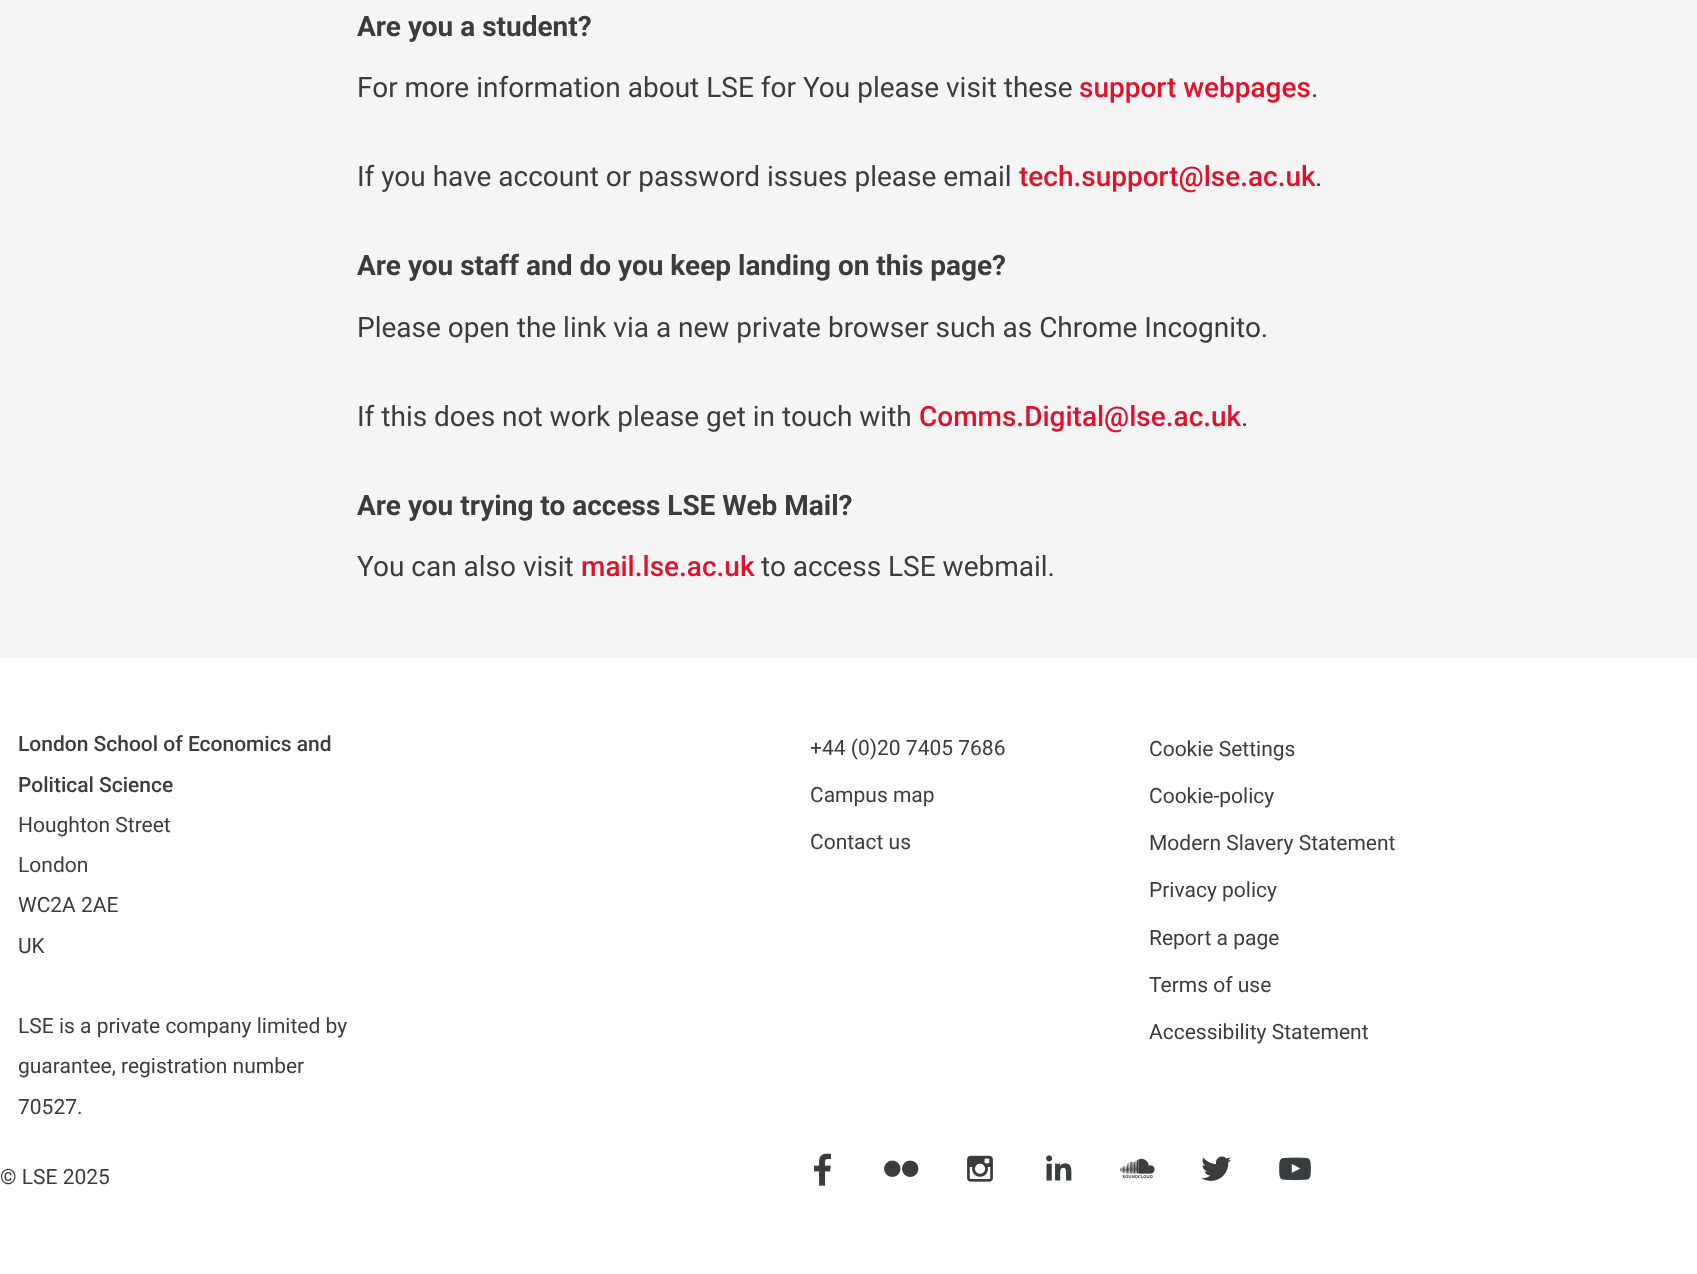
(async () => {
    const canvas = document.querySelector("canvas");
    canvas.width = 1697;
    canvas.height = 1274;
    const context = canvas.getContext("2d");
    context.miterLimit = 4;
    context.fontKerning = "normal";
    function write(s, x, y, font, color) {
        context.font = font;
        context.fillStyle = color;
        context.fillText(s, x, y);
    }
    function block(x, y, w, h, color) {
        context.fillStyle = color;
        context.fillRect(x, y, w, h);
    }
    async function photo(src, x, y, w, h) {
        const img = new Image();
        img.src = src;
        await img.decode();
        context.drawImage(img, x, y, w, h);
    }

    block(0, 0, 1697, 1274, "rgb(245, 245, 245)");
    write("Are you a student?", 357, 36, "bold 28px Roboto", "rgb(58, 61, 63)");
    write("For more information about LSE for You please visit these", 357, 97, "28px Roboto", "rgb(58, 61, 63)");
    write("support webpages", 1079, 97, "500 28px Roboto", "rgb(224, 17, 43)");
    write(".", 1311, 97, "28px Roboto", "rgb(58, 61, 63)");
    write("If you have account or password issues please email", 357, 186, "28px Roboto", "rgb(58, 61, 63)");
    write("tech.support@lse.ac.uk", 1019, 186, "500 28px Roboto", "rgb(224, 17, 43)");
    write(".", 1315, 186, "28px Roboto", "rgb(58, 61, 63)");
    write("Are you staff and do you keep landing on this page?", 357, 275, "bold 28px Roboto", "rgb(58, 61, 63)");
    write("Please open the link via a new private browser such as Chrome Incognito.", 357, 337, "28px Roboto", "rgb(58, 61, 63)");
    write("If this does not work please get in touch with", 357, 426, "28px Roboto", "rgb(58, 61, 63)");
    write("Comms.Digital@lse.ac.uk", 919, 426, "500 28px Roboto", "rgb(224, 17, 43)");
    write(".", 1241, 426, "28px Roboto", "rgb(58, 61, 63)");
    write("Are you trying to access LSE Web Mail?", 357, 515, "bold 28px Roboto", "rgb(58, 61, 63)");
    write("You can also visit", 357, 576, "28px Roboto", "rgb(58, 61, 63)");
    write("mail.lse.ac.uk", 581, 576, "500 28px Roboto", "rgb(224, 17, 43)");
    write("to access LSE webmail.", 761, 576, "28px Roboto", "rgb(58, 61, 63)");
    block(0, 658, 1697, 616, "rgb(255, 255, 255)");
    write("London School of Economics and", 18, 751, "500 21px Roboto", "rgb(58, 61, 63)");
    write("Political Science", 18, 792, "500 21px Roboto", "rgb(58, 61, 63)");
    write("Houghton Street", 18, 832, "21px Roboto", "rgb(58, 61, 63)");
    write("London", 18, 872, "21px Roboto", "rgb(58, 61, 63)");
    write("WC2A 2AE", 18, 912, "21px Roboto", "rgb(58, 61, 63)");
    write("UK", 18, 953, "21px Roboto", "rgb(58, 61, 63)");
    write("LSE is a private company limited by", 18, 1033, "21px Roboto", "rgb(58, 61, 63)");
    write("guarantee, registration number", 18, 1073, "21px Roboto", "rgb(58, 61, 63)");
    write("70527.", 18, 1114, "21px Roboto", "rgb(58, 61, 63)");
    write("+44 (0)20 7405 7686", 810, 755, "21px Roboto", "rgb(58, 61, 63)");
    write("Campus map", 810, 802, "21px Roboto", "rgb(58, 61, 63)");
    write("Contact us", 810, 849, "21px Roboto", "rgb(58, 61, 63)");
    write("Cookie Settings", 1149, 756, "21px Roboto", "rgb(58, 61, 63)");
    write("Cookie-policy", 1149, 803, "21px Roboto", "rgb(58, 61, 63)");
    write("Modern Slavery Statement", 1149, 850, "21px Roboto", "rgb(58, 61, 63)");
    write("Privacy policy", 1149, 897, "21px Roboto", "rgb(58, 61, 63)");
    write("Report a page", 1149, 945, "21px Roboto", "rgb(58, 61, 63)");
    write("Terms of use", 1149, 992, "21px Roboto", "rgb(58, 61, 63)");
    write("Accessibility Statement", 1149, 1039, "21px Roboto", "rgb(58, 61, 63)");
    write("© LSE 2025", 0, 1184, "21px Roboto", "rgb(58, 61, 63)");
    await photo("media/1.png", 814, 1153, 17, 33);
    await photo("media/2.png", 884, 1160, 35, 17);
    await photo("media/3.png", 967, 1155, 26, 27);
    await photo("media/4.png", 1046, 1155, 26, 26);
    await photo("media/5.png", 1120, 1158, 35, 21);
    await photo("media/6.png", 1201, 1156, 31, 25);
    await photo("media/7.png", 1279, 1157, 32, 23);
})();
